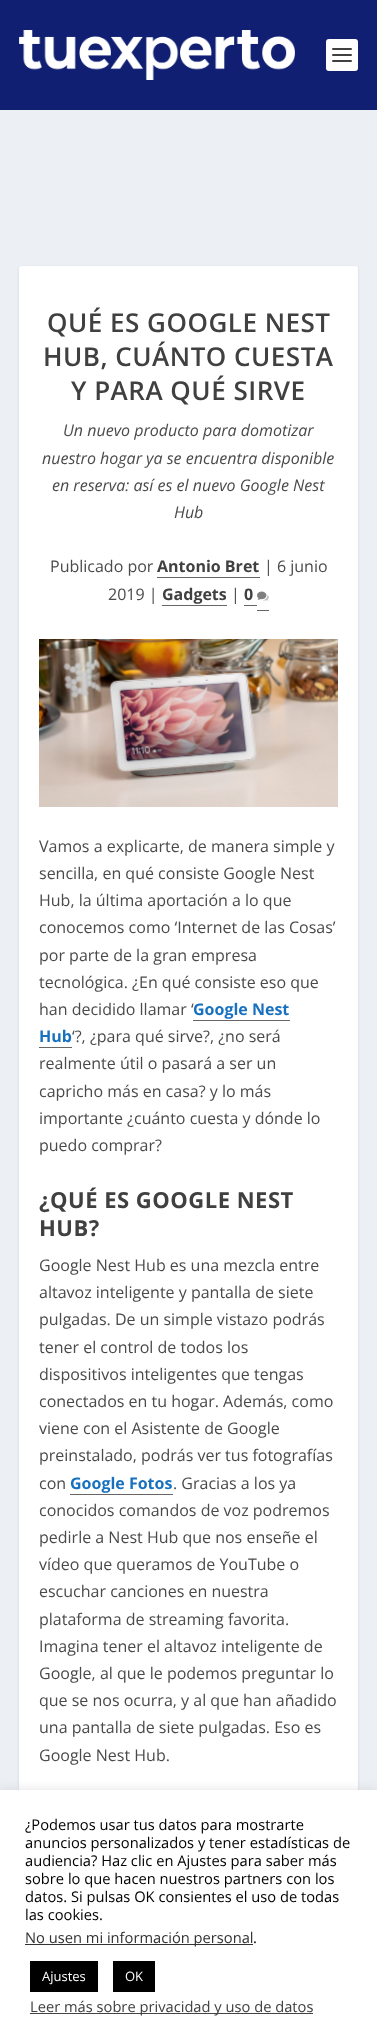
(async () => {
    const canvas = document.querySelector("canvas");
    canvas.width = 377;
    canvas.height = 2040;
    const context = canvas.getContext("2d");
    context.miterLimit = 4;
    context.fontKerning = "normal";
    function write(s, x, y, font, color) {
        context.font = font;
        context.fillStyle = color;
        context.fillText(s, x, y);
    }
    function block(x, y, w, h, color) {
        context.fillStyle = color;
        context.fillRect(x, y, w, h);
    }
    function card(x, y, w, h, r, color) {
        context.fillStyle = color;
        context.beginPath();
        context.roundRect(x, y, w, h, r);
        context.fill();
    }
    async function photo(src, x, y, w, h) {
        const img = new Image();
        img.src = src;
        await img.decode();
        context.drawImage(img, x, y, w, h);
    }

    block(0, 0, 377, 2040, "rgb(236, 240, 245)");
    block(0, 0, 377, 110, "rgb(16, 31, 114)");
    await photo("media/1.png", 19, 30, 276, 50);
    card(326, 39, 32, 32, 3, "rgb(255, 255, 255)");
    card(332, 48, 20, 2, 1, "rgb(64, 64, 64)");
    card(332, 54, 20, 2, 1, "rgb(64, 64, 64)");
    card(332, 60, 20, 2, 1, "rgb(64, 64, 64)");
    context.fillStyle = "rgba(0, 0, 0, 0.1)";
    context.filter = "blur(1.5px)";
    context.beginPath();
    context.roundRect(19, 267, 339, 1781, 3);
    context.fill();
    context.filter = "none";
    card(19, 266, 339, 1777, 3, "rgb(255, 255, 255)");
    context.letterSpacing = "0.5px";
    write("QUÉ ES GOOGLE NEST", 47, 332, "600 26px Open Sans", "rgb(64, 64, 64)");
    write("HUB, CUÁNTO CUESTA", 43, 366, "600 26px Open Sans", "rgb(64, 64, 64)");
    write("Y PARA QUÉ SIRVE", 71, 400, "600 26px Open Sans", "rgb(64, 64, 64)");
    context.letterSpacing = "0px";
    write("Un nuevo producto para domotizar", 63, 436, "italic 16px Open Sans", "rgb(74, 74, 74)");
    write("nuestro hogar ya se encuentra disponible", 42, 464, "italic 16px Open Sans", "rgb(74, 74, 74)");
    write("en reserva: así es el nuevo Google Nest", 52, 491, "italic 16px Open Sans", "rgb(74, 74, 74)");
    write("Hub", 174, 518, "italic 16px Open Sans", "rgb(74, 74, 74)");
    write("Publicado por", 50, 572, "16px Open Sans", "rgb(74, 74, 74)");
    write("Antonio Bret", 157, 572, "bold 16px Open Sans", "rgb(64, 64, 64)");
    block(157, 577, 103, 1, "rgb(102, 102, 102)");
    write("| 6 junio", 264, 572, "16px Open Sans", "rgb(74, 74, 74)");
    write("2019 |", 108, 600, "16px Open Sans", "rgb(74, 74, 74)");
    write("Gadgets", 162, 600, "bold 16px Open Sans", "rgb(64, 64, 64)");
    block(162, 605, 65, 1, "rgb(102, 102, 102)");
    write("|", 231, 600, "16px Open Sans", "rgb(74, 74, 74)");
    block(244, 605, 13, 1, "rgb(102, 102, 102)");
    block(257, 610, 12, 1, "rgb(102, 102, 102)");
    write("0", 244, 600, "bold 16px Open Sans", "rgb(64, 64, 64)");
    await photo("media/2.png", 257, 591, 12, 10);
    await photo("media/3.png", 39, 639, 299, 168);
    write("Vamos a explicarte, de manera simple y", 39, 852, "16px Open Sans", "rgb(74, 74, 74)");
    write("sencilla, en qué consiste Google Nest", 39, 879, "16px Open Sans", "rgb(74, 74, 74)");
    write("Hub, la última aportación a lo que", 39, 906, "16px Open Sans", "rgb(74, 74, 74)");
    write("conocemos como ‘Internet de las Cosas’", 39, 933, "16px Open Sans", "rgb(74, 74, 74)");
    write("por parte de la gran empresa", 39, 961, "16px Open Sans", "rgb(74, 74, 74)");
    write("tecnológica. ¿En qué consiste eso que", 39, 988, "16px Open Sans", "rgb(74, 74, 74)");
    write("han decidido llamar ‘", 39, 1015, "16px Open Sans", "rgb(74, 74, 74)");
    write("Google Nest", 193, 1015, "bold 16px Open Sans", "rgb(24, 113, 191)");
    block(193, 1020, 97, 1, "rgb(102, 102, 102)");
    write("Hub", 39, 1042, "bold 16px Open Sans", "rgb(24, 113, 191)");
    block(39, 1047, 33, 1, "rgb(102, 102, 102)");
    write("‘?, ¿para qué sirve?, ¿no será", 72, 1042, "16px Open Sans", "rgb(74, 74, 74)");
    write("realmente útil o pasará a ser un", 39, 1069, "16px Open Sans", "rgb(74, 74, 74)");
    write("capricho más en casa? y lo más", 39, 1097, "16px Open Sans", "rgb(74, 74, 74)");
    write("importante ¿cuánto cuesta y dónde lo", 39, 1124, "16px Open Sans", "rgb(74, 74, 74)");
    write("puedo comprar?", 39, 1151, "16px Open Sans", "rgb(74, 74, 74)");
    context.letterSpacing = "0.5px";
    write("¿QUÉ ES GOOGLE NEST", 39, 1208, "bold 22px Open Sans", "rgb(64, 64, 64)");
    write("HUB?", 39, 1236, "bold 22px Open Sans", "rgb(64, 64, 64)");
    context.letterSpacing = "0px";
    write("Google Nest Hub es una mezcla entre", 39, 1271, "16px Open Sans", "rgb(74, 74, 74)");
    write("altavoz inteligente y pantalla de siete", 39, 1298, "16px Open Sans", "rgb(74, 74, 74)");
    write("pulgadas. De un simple vistazo podrás", 39, 1325, "16px Open Sans", "rgb(74, 74, 74)");
    write("tener el control de todos los", 39, 1353, "16px Open Sans", "rgb(74, 74, 74)");
    write("dispositivos inteligentes que tengas", 39, 1380, "16px Open Sans", "rgb(74, 74, 74)");
    write("conectados en tu hogar. Además, como", 39, 1407, "16px Open Sans", "rgb(74, 74, 74)");
    write("viene con el Asistente de Google", 39, 1434, "16px Open Sans", "rgb(74, 74, 74)");
    write("preinstalado, podrás ver tus fotografías", 39, 1461, "16px Open Sans", "rgb(74, 74, 74)");
    write("con", 39, 1489, "16px Open Sans", "rgb(74, 74, 74)");
    write("Google Fotos", 70, 1489, "bold 16px Open Sans", "rgb(24, 113, 191)");
    block(70, 1494, 103, 1, "rgb(102, 102, 102)");
    write(". Gracias a los ya", 173, 1489, "16px Open Sans", "rgb(74, 74, 74)");
    write("conocidos comandos de voz podremos", 39, 1516, "16px Open Sans", "rgb(74, 74, 74)");
    write("pedirle a Nest Hub que nos enseñe el", 39, 1543, "16px Open Sans", "rgb(74, 74, 74)");
    write("vídeo que queramos de YouTube o", 39, 1570, "16px Open Sans", "rgb(74, 74, 74)");
    write("escuchar canciones en nuestra", 39, 1597, "16px Open Sans", "rgb(74, 74, 74)");
    write("plataforma de streaming favorita.", 39, 1625, "16px Open Sans", "rgb(74, 74, 74)");
    write("Imagina tener el altavoz inteligente de", 39, 1652, "16px Open Sans", "rgb(74, 74, 74)");
    write("Google, al que le podemos preguntar lo", 39, 1679, "16px Open Sans", "rgb(74, 74, 74)");
    write("que se nos ocurra, y al que han añadido", 39, 1706, "16px Open Sans", "rgb(74, 74, 74)");
    write("una pantalla de siete pulgadas. Eso es", 39, 1733, "16px Open Sans", "rgb(74, 74, 74)");
    write("Google Nest Hub.", 39, 1761, "16px Open Sans", "rgb(74, 74, 74)");
    context.fillStyle = "rgba(172, 171, 171, 0.3)";
    context.filter = "blur(5px)";
    context.beginPath();
    context.rect(0, 1789, 377, 250);
    context.fill();
    context.filter = "none";
    block(0, 1790, 377, 250, "rgb(255, 255, 255)");
    write("¿Podemos usar tus datos para mostrarte", 25, 1830, "14.7px Open Sans", "rgb(0, 0, 0)");
    write("anuncios personalizados y tener estadísticas de", 25, 1848, "14.7px Open Sans", "rgb(0, 0, 0)");
    write("audiencia? Haz clic en Ajustes para saber más", 25, 1866, "14.7px Open Sans", "rgb(0, 0, 0)");
    write("sobre lo que hacen nuestros partners con los", 25, 1884, "14.7px Open Sans", "rgb(0, 0, 0)");
    write("datos. Si pulsas OK consientes el uso de todas", 25, 1902, "14.7px Open Sans", "rgb(0, 0, 0)");
    write("las cookies.", 25, 1920, "14.7px Open Sans", "rgb(0, 0, 0)");
    block(25, 1944, 228, 1, "rgb(51, 51, 51)");
    write("No usen mi información personal", 25, 1943, "14.7px Open Sans", "rgb(51, 51, 51)");
    write(".", 253, 1943, "14.7px Open Sans", "rgb(0, 0, 0)");
    block(30, 1961, 68, 31, "rgb(0, 0, 0)");
    write("Ajustes", 42, 1981, "13px Open Sans", "rgb(255, 255, 255)");
    block(113, 1961, 42, 31, "rgb(0, 0, 0)");
    write("OK", 125, 1981, "13px Open Sans", "rgb(255, 255, 255)");
    block(30, 2013, 283, 1, "rgb(68, 68, 68)");
    write("Leer más sobre privacidad y uso de datos", 30, 2012, "14.7px Open Sans", "rgb(64, 64, 64)");
})();
